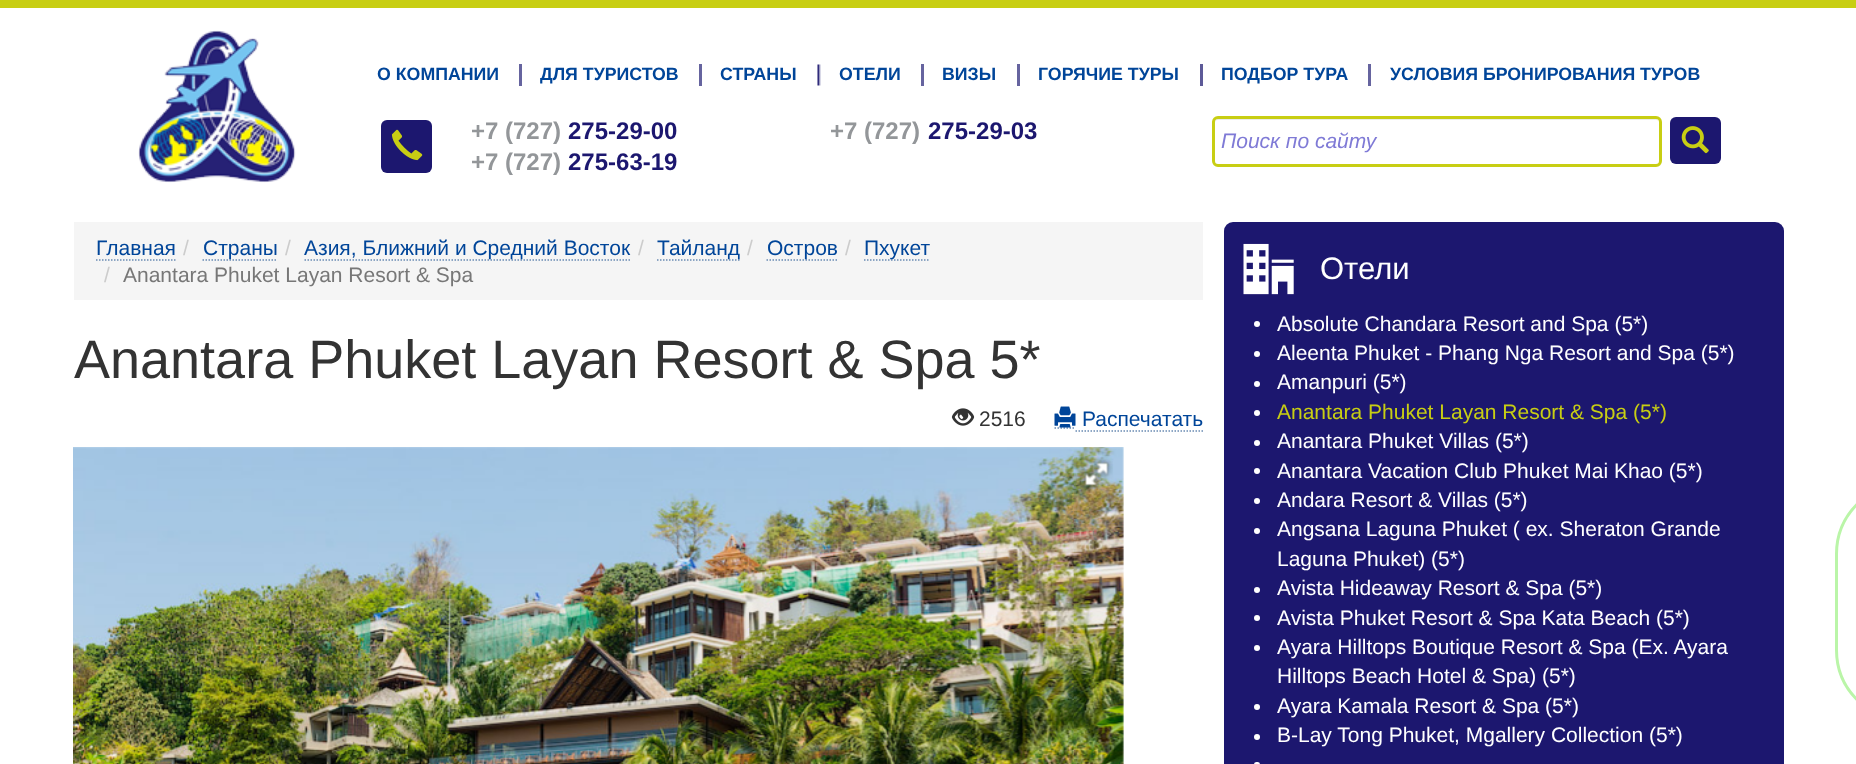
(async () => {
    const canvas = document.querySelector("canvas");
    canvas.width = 1856;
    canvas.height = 764;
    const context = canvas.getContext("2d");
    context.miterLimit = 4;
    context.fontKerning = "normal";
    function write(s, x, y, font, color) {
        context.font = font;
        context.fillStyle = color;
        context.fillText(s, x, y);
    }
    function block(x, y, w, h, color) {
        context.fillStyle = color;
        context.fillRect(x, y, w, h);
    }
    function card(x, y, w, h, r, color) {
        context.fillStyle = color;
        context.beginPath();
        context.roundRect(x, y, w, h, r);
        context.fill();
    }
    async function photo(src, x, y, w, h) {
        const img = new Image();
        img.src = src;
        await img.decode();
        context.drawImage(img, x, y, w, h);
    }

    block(0, 0, 1856, 764, "rgb(255, 255, 255)");
    block(0, 0, 1856, 8, "rgb(200, 206, 19)");
    await photo("media/1.png", 138, 30, 158, 153);
    write("О КОМПАНИИ", 377, 80, "bold 17.75px Liberation Sans", "rgb(0, 69, 153)");
    block(519, 64, 3, 22, "rgb(102, 100, 159)");
    write("ДЛЯ ТУРИСТОВ", 540, 80, "bold 17.75px Liberation Sans", "rgb(0, 69, 153)");
    block(699, 64, 3, 22, "rgb(102, 100, 159)");
    write("СТРАНЫ", 720, 80, "bold 17.75px Liberation Sans", "rgb(0, 69, 153)");
    await photo("media/2.png", 817, 64, 4, 22);
    write("ОТЕЛИ", 839, 80, "bold 17.75px Liberation Sans", "rgb(0, 69, 153)");
    block(921, 64, 3, 22, "rgb(102, 100, 159)");
    write("ВИЗЫ", 942, 80, "bold 17.75px Liberation Sans", "rgb(0, 69, 153)");
    block(1017, 64, 3, 22, "rgb(102, 100, 159)");
    write("ГОРЯЧИЕ ТУРЫ", 1038, 80, "bold 17.75px Liberation Sans", "rgb(0, 69, 153)");
    block(1200, 64, 3, 22, "rgb(93, 90, 152)");
    write("ПОДБОР ТУРА", 1221, 80, "bold 17.75px Liberation Sans", "rgb(0, 69, 153)");
    block(1368, 64, 3, 22, "rgb(102, 100, 159)");
    write("УСЛОВИЯ БРОНИРОВАНИЯ ТУРОВ", 1390, 80, "bold 17.75px Liberation Sans", "rgb(0, 69, 153)");
    card(381, 120, 51, 53, 6, "rgb(28, 23, 111)");
    await photo("media/3.png", 391, 129, 32, 32);
    write("+7 (727)", 471, 139, "bold 24px Liberation Sans", "rgb(147, 150, 153)");
    write("275-29-00", 568, 139, "bold 24px Liberation Sans", "rgb(28, 23, 111)");
    write("+7 (727)", 830, 139, "bold 24px Liberation Sans", "rgb(147, 150, 153)");
    write("275-29-03", 928, 139, "bold 24px Liberation Sans", "rgb(28, 23, 111)");
    write("+7 (727)", 471, 170, "bold 24px Liberation Sans", "rgb(147, 150, 153)");
    write("275-63-19", 568, 170, "bold 24px Liberation Sans", "rgb(28, 23, 111)");
    context.fillStyle = "rgb(236, 236, 236)";
    context.beginPath();
    context.moveTo(1218, 120);
    context.lineTo(1656, 120);
    context.bezierCurveTo(1658, 120, 1659, 121, 1659, 123);
    context.bezierCurveTo(1659, 121, 1658, 119, 1656, 119);
    context.lineTo(1217, 119);
    context.lineTo(1215, 121);
    context.lineTo(1215, 123);
    context.bezierCurveTo(1215, 121, 1216, 120, 1218, 120);
    context.closePath();
    context.fill();
    context.beginPath();
    context.roundRect(1213.5, 117.5, 447, 48, 4.5);
    context.strokeStyle = "rgb(200, 206, 19)";
    context.lineWidth = 3;
    context.stroke();
    write("Поиск по сайту", 1221, 148, "italic 21px Liberation Sans", "rgb(127, 122, 214)");
    card(1670, 117, 51, 47, 6, "rgb(28, 23, 111)");
    await photo("media/4.png", 1681, 126, 28, 28);
    block(74, 222, 1129, 78, "rgb(245, 245, 245)");
    write("Главная", 96, 255, "21px Liberation Sans", "rgb(0, 69, 153)");
    context.beginPath();
    context.moveTo(96, 260);
    context.lineTo(175.5, 260);
    context.strokeStyle = "rgb(105, 139, 179)";
    context.lineWidth = 1.5;
    context.setLineDash([1.5, 1.5]);
    context.stroke();
    write("/", 183, 255, "21px Liberation Sans", "rgb(204, 204, 204)");
    context.beginPath();
    context.moveTo(202.5, 260);
    context.lineTo(277.5, 260);
    context.stroke();
    write("Страны", 203, 255, "21px Liberation Sans", "rgb(0, 69, 153)");
    write("/", 285, 255, "21px Liberation Sans", "rgb(204, 204, 204)");
    context.beginPath();
    context.moveTo(304.5, 260);
    context.lineTo(630, 260);
    context.stroke();
    write("Азия, Ближний и Средний Восток", 304, 255, "21px Liberation Sans", "rgb(0, 69, 153)");
    write("/", 638, 255, "21px Liberation Sans", "rgb(204, 204, 204)");
    context.beginPath();
    context.moveTo(657, 260);
    context.lineTo(739.5, 260);
    context.stroke();
    write("Тайланд", 657, 255, "21px Liberation Sans", "rgb(0, 69, 153)");
    write("/", 747, 255, "21px Liberation Sans", "rgb(204, 204, 204)");
    context.beginPath();
    context.moveTo(766.5, 260);
    context.lineTo(837, 260);
    context.stroke();
    write("Остров", 767, 255, "21px Liberation Sans", "rgb(0, 69, 153)");
    write("/", 845, 255, "21px Liberation Sans", "rgb(204, 204, 204)");
    context.beginPath();
    context.moveTo(864, 260);
    context.lineTo(930, 260);
    context.stroke();
    write("Пхукет", 864, 255, "21px Liberation Sans", "rgb(0, 69, 153)");
    write("/", 104, 282, "21px Liberation Sans", "rgb(204, 204, 204)");
    write("Anantara Phuket Layan Resort & Spa", 123, 282, "21px Liberation Sans", "rgb(119, 119, 119)");
    write("Anantara Phuket Layan Resort & Spa 5*", 74, 378, "54px Liberation Sans", "rgb(51, 51, 51)");
    await photo("media/5.png", 951, 408, 24, 18);
    write("2516", 979, 426, "21px Liberation Sans", "rgb(51, 51, 51)");
    context.beginPath();
    context.moveTo(1054.5, 428);
    context.lineTo(1075.5, 428);
    context.stroke();
    context.beginPath();
    context.moveTo(1075.5, 431);
    context.lineTo(1203, 431);
    context.stroke();
    await photo("media/6.png", 1054, 406, 22, 22);
    write("Распечатать", 1082, 426, "21px Liberation Sans", "rgb(0, 69, 153)");
    await photo("media/7.png", 73, 447, 1051, 317);
    await photo("media/8.png", 1080, 457, 33, 34);
    card(1224, 222, 560, 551, 9, "rgb(28, 23, 111)");
    await photo("media/9.png", 1243, 243, 51, 52);
    write("Отели", 1320, 279, "31px Liberation Sans", "rgb(255, 255, 255)");
    context.beginPath();
    context.arc(1257, 324, 3, 0, Math.PI * 2);
    context.fill();
    write("Absolute Chandara Resort and Spa (5*)", 1277, 331, "21px Liberation Sans", "rgb(255, 255, 255)");
    context.beginPath();
    context.arc(1257, 354, 3, 0, Math.PI * 2);
    context.fill();
    write("Aleenta Phuket - Phang Nga Resort and Spa (5*)", 1277, 360, "21px Liberation Sans", "rgb(255, 255, 255)");
    context.beginPath();
    context.arc(1257, 384, 3, 0, Math.PI * 2);
    context.fill();
    write("Amanpuri (5*)", 1277, 389, "21px Liberation Sans", "rgb(255, 255, 255)");
    context.beginPath();
    context.arc(1257, 413, 3, 0, Math.PI * 2);
    context.fill();
    write("Anantara Phuket Layan Resort & Spa (5*)", 1277, 419, "21px Liberation Sans", "rgb(200, 206, 19)");
    context.fillStyle = "rgb(255, 255, 255)";
    context.beginPath();
    context.arc(1257, 443, 3, 0, Math.PI * 2);
    context.fill();
    write("Anantara Phuket Villas (5*)", 1277, 448, "21px Liberation Sans", "rgb(255, 255, 255)");
    context.beginPath();
    context.arc(1257, 471, 3, 0, Math.PI * 2);
    context.fill();
    write("Anantara Vacation Club Phuket Mai Khao (5*)", 1277, 478, "21px Liberation Sans", "rgb(255, 255, 255)");
    context.beginPath();
    context.arc(1257, 501, 3, 0, Math.PI * 2);
    context.fill();
    write("Andara Resort & Villas (5*)", 1277, 507, "21px Liberation Sans", "rgb(255, 255, 255)");
    context.beginPath();
    context.arc(1257, 531, 3, 0, Math.PI * 2);
    context.fill();
    write("Angsana Laguna Phuket ( ex. Sheraton Grande", 1277, 536, "21px Liberation Sans", "rgb(255, 255, 255)");
    write("Laguna Phuket) (5*)", 1277, 566, "21px Liberation Sans", "rgb(255, 255, 255)");
    context.beginPath();
    context.arc(1257, 590, 3, 0, Math.PI * 2);
    context.fill();
    write("Avista Hideaway Resort & Spa (5*)", 1277, 595, "21px Liberation Sans", "rgb(255, 255, 255)");
    context.beginPath();
    context.arc(1257, 618, 3, 0, Math.PI * 2);
    context.fill();
    write("Avista Phuket Resort & Spa Kata Beach (5*)", 1277, 625, "21px Liberation Sans", "rgb(255, 255, 255)");
    context.beginPath();
    context.arc(1257, 648, 3, 0, Math.PI * 2);
    context.fill();
    write("Ayara Hilltops Boutique Resort & Spa (Ex. Ayara", 1277, 654, "21px Liberation Sans", "rgb(255, 255, 255)");
    write("Hilltops Beach Hotel & Spa) (5*)", 1277, 683, "21px Liberation Sans", "rgb(255, 255, 255)");
    context.beginPath();
    context.arc(1257, 707, 3, 0, Math.PI * 2);
    context.fill();
    write("Ayara Kamala Resort & Spa (5*)", 1277, 713, "21px Liberation Sans", "rgb(255, 255, 255)");
    context.beginPath();
    context.arc(1257, 737, 3, 0, Math.PI * 2);
    context.fill();
    write("B-Lay Tong Phuket, Mgallery Collection (5*)", 1277, 742, "21px Liberation Sans", "rgb(255, 255, 255)");
    card(1254, 762, 6, 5, 3, "rgb(255, 255, 255)");
    context.beginPath();
    context.roundRect(1836.5, 483.5, 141, 237, 118.5);
    context.strokeStyle = "rgb(186, 245, 168)";
    context.lineWidth = 3;
    context.setLineDash([]);
    context.stroke();
})();
